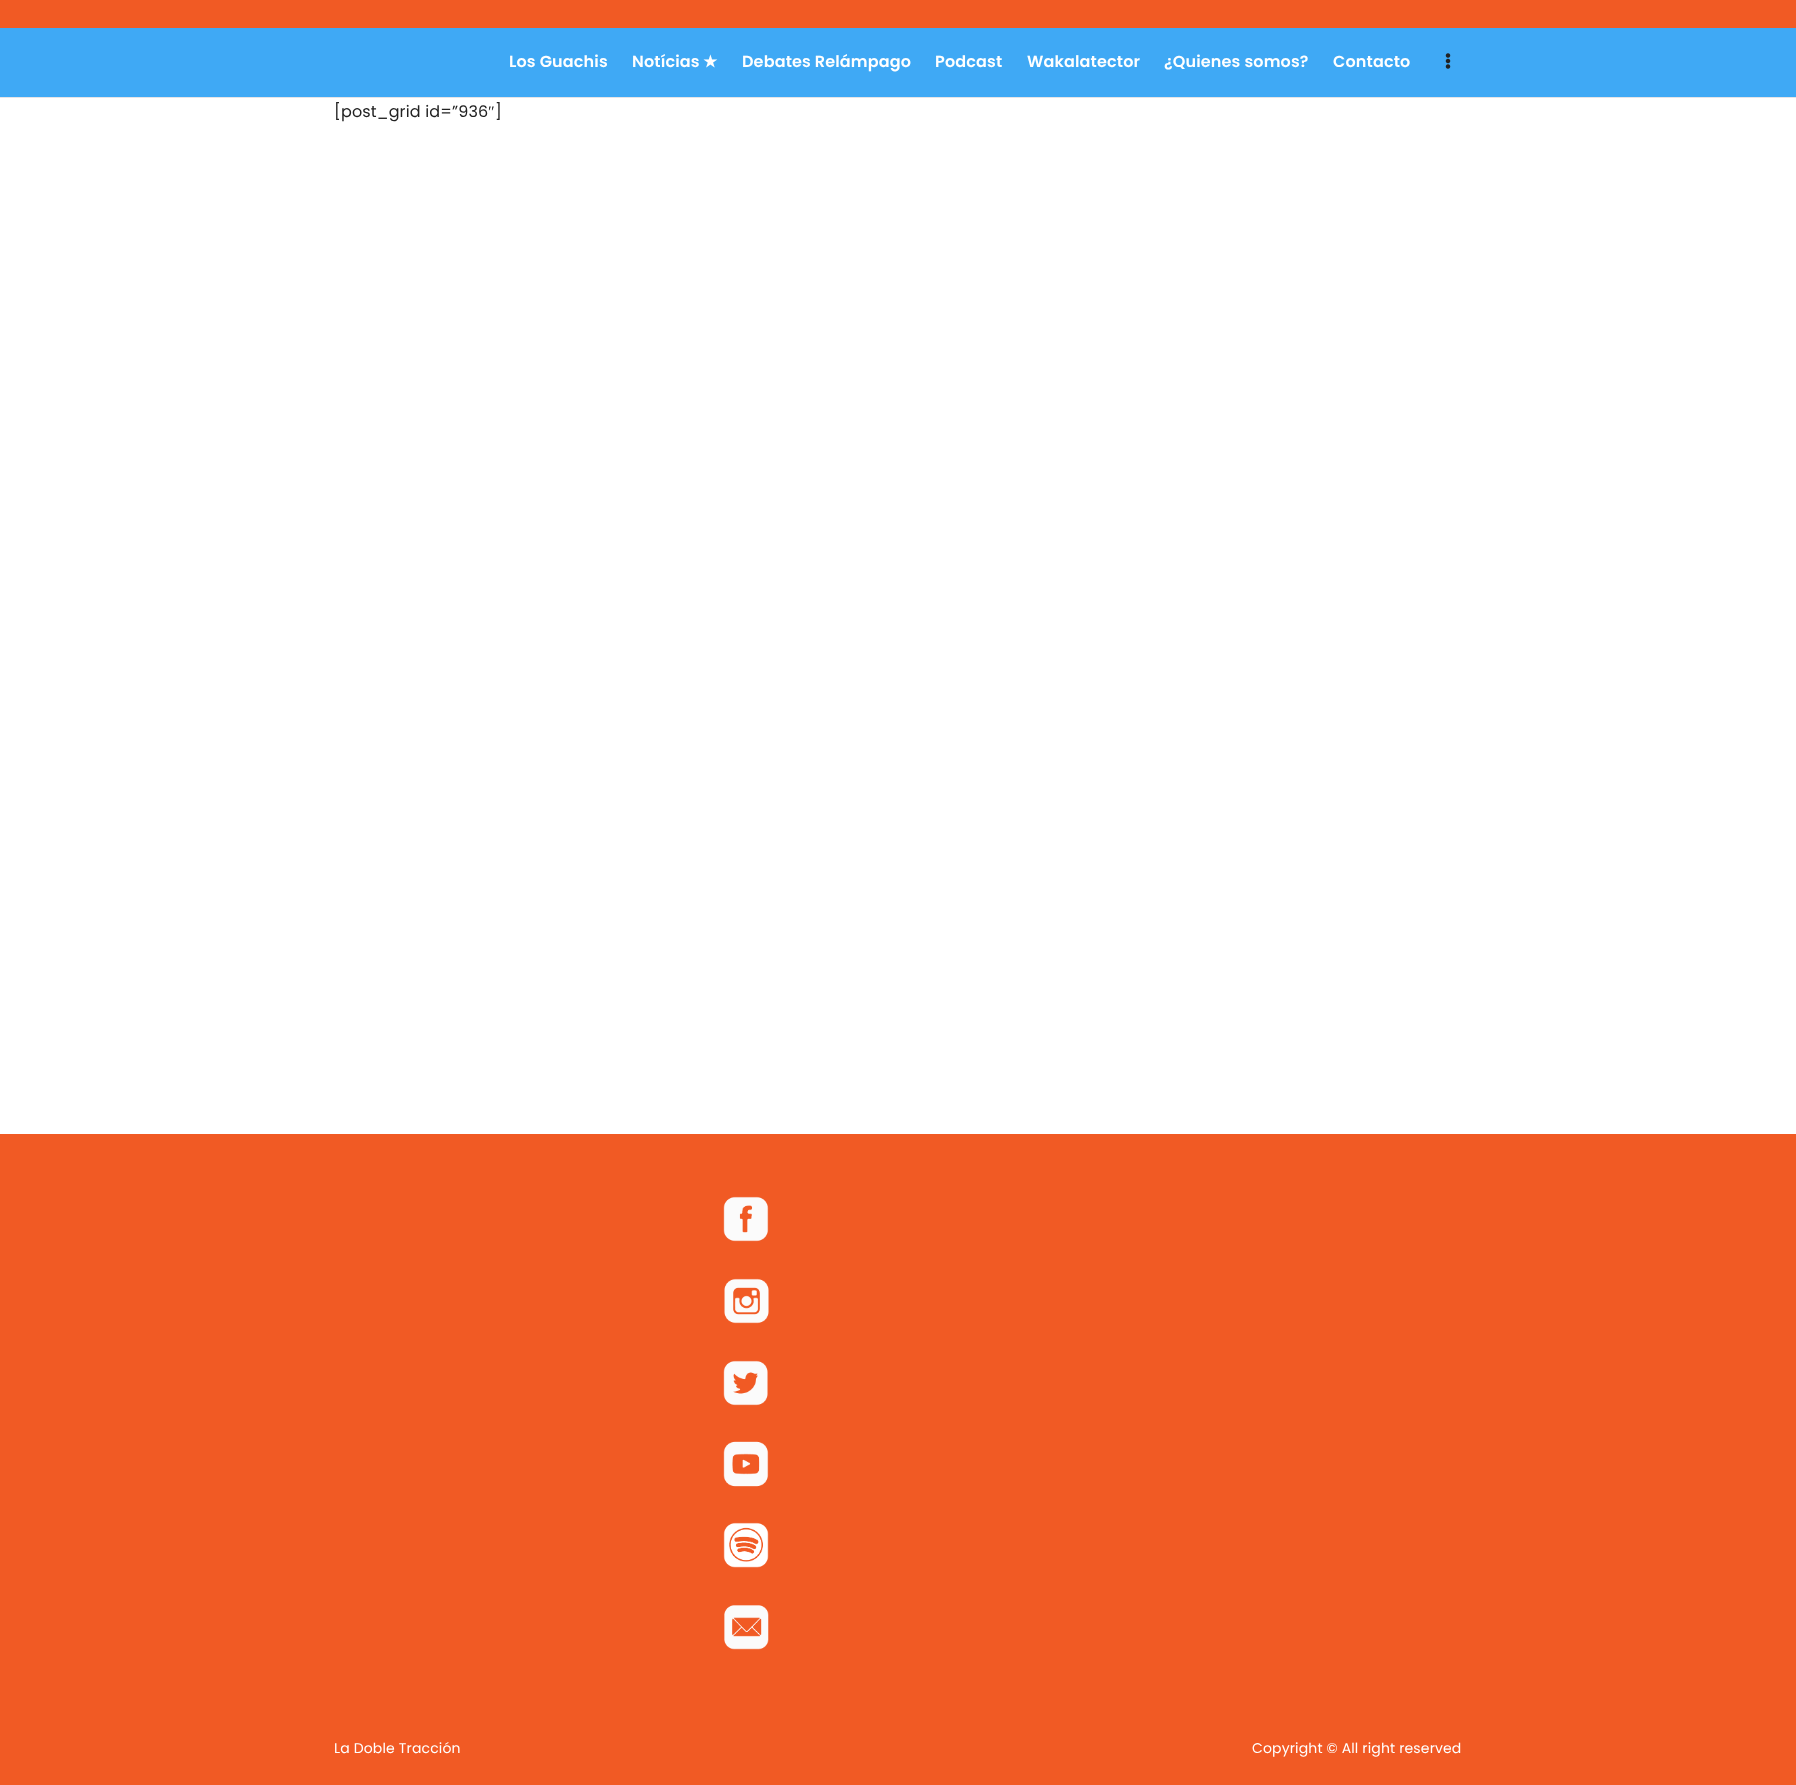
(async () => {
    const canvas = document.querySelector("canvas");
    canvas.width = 1796;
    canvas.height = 1785;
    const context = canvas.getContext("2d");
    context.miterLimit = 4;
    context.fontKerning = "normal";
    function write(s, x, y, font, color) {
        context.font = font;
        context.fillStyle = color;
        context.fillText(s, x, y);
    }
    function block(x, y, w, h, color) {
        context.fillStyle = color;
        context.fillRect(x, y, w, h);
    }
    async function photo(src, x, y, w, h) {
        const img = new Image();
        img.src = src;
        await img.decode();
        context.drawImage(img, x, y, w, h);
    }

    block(0, 0, 1796, 1785, "rgb(228, 228, 231)");
    block(0, 0, 1796, 28, "rgb(241, 90, 36)");
    block(0, 28, 1796, 69, "rgb(63, 169, 245)");
    context.letterSpacing = "0.15px";
    write("Los Guachis", 509, 67, "600 16px Poppins", "rgb(255, 255, 255)");
    write("Notícias", 632, 67, "600 16px Poppins", "rgb(255, 255, 255)");
    write("★", 703, 67, "bold 16px DejaVu Sans", "rgb(255, 255, 255)");
    write("Debates Relámpago", 742, 67, "600 16px Poppins", "rgb(255, 255, 255)");
    write("Podcast", 935, 67, "600 16px Poppins", "rgb(255, 255, 255)");
    write("Wakalatector", 1027, 67, "600 16px Poppins", "rgb(255, 255, 255)");
    write("¿Quienes somos?", 1164, 67, "600 16px Poppins", "rgb(255, 255, 255)");
    write("Contacto", 1333, 67, "600 16px Poppins", "rgb(255, 255, 255)");
    await photo("media/1.png", 1445, 53, 6, 16);
    block(0, 98, 1796, 1036, "rgb(255, 255, 255)");
    write("[post_grid id=”936", 334, 117, "16px Poppins", "rgb(34, 34, 34)");
    write("″", 488, 117, "16px Liberation Serif", "rgb(34, 34, 34)");
    write("]", 495, 117, "16px Poppins", "rgb(34, 34, 34)");
    block(0, 1134, 1796, 651, "rgb(241, 90, 36)");
    await photo("media/2.png", 723, 1196, 46, 46);
    await photo("media/3.png", 724, 1278, 45, 46);
    await photo("media/4.png", 723, 1360, 45, 46);
    await photo("media/5.png", 723, 1441, 46, 46);
    await photo("media/6.png", 723, 1522, 46, 46);
    await photo("media/7.png", 724, 1605, 45, 45);
    write("La Doble Tracción", 334, 1753, "14px Poppins", "rgb(255, 255, 255)");
    write("Copyright © All right reserved", 1252, 1753, "14px Poppins", "rgb(255, 255, 255)");
})();
